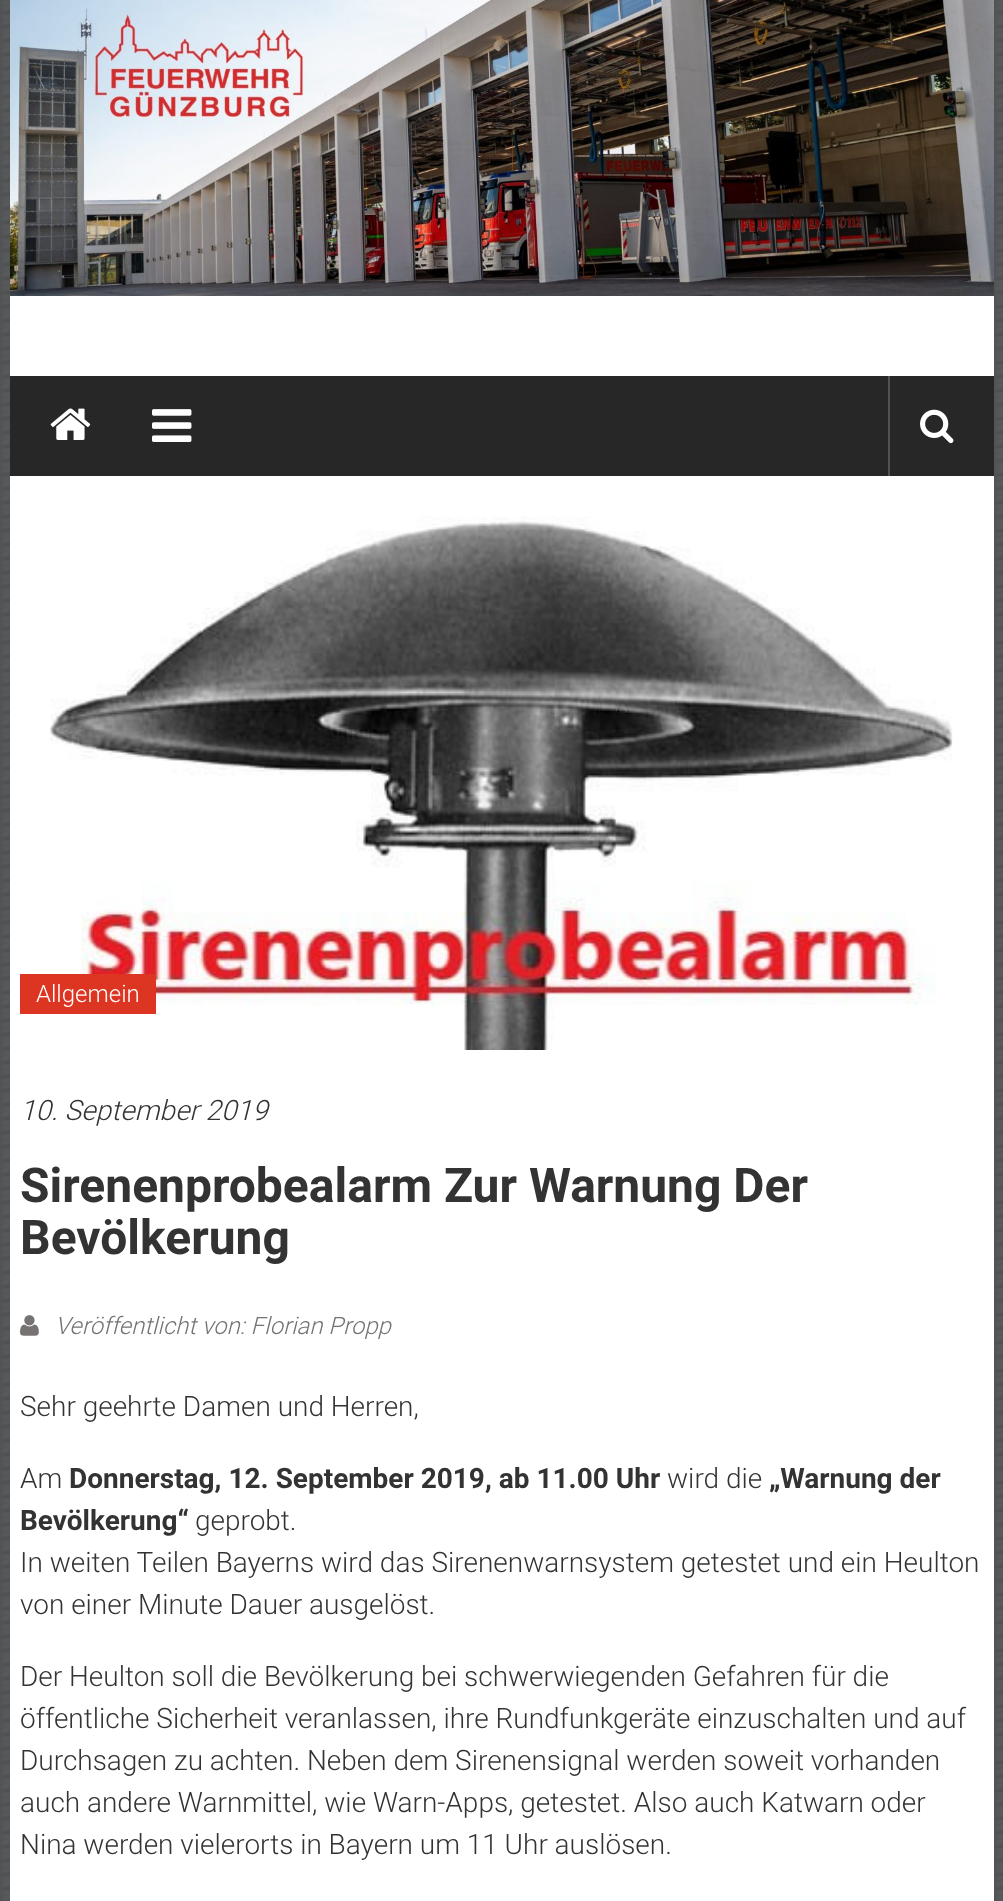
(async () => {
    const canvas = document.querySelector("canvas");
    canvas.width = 1003;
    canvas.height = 1901;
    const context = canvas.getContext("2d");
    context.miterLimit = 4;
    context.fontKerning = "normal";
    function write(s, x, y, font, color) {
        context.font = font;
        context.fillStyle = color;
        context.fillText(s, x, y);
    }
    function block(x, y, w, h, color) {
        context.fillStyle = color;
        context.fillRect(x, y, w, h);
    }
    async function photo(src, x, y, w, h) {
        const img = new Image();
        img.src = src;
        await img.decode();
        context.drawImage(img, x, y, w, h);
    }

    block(0, 0, 1003, 1901, "rgb(255, 255, 255)");
    await photo("media/1.png", 0, 0, 1003, 1901);
    block(10, 296, 984, 1605, "rgb(255, 255, 255)");
    await photo("media/2.png", 10, 0, 984, 296);
    block(10, 376, 984, 100, "rgb(39, 39, 39)");
    await photo("media/3.png", 50, 408, 41, 32);
    await photo("media/4.png", 152, 409, 40, 33);
    block(888, 376, 2, 100, "rgb(82, 82, 82)");
    await photo("media/5.png", 920, 409, 34, 35);
    await photo("media/6.png", 50, 516, 903, 534);
    block(20, 974, 136, 40, "rgb(220, 53, 34)");
    write("Allgemein", 36, 1002, "300 24px Roboto", "rgb(255, 255, 255)");
    write("10. September 2019", 20, 1120, "italic 300 28px Roboto", "rgb(51, 51, 51)");
    write("Sirenenprobealarm Zur Warnung Der", 20, 1202, "bold 48px Roboto", "rgb(51, 51, 51)");
    write("Bevölkerung", 20, 1254, "bold 48px Roboto", "rgb(51, 51, 51)");
    await photo("media/7.png", 20, 1315, 19, 21);
    write("Veröffentlicht von: Florian Propp", 55, 1334, "italic 300 24px Roboto", "rgb(118, 114, 114)");
    write("Sehr geehrte Damen und Herren,", 20, 1416, "300 28px Roboto", "rgb(51, 51, 51)");
    write("Am", 20, 1488, "300 28px Roboto", "rgb(51, 51, 51)");
    write("Donnerstag, 12. September 2019, ab 11.00 Uhr", 69, 1488, "bold 28px Roboto", "rgb(51, 51, 51)");
    write("wird die", 667, 1488, "300 28px Roboto", "rgb(51, 51, 51)");
    write("„Warnung der", 769, 1488, "bold 28px Roboto", "rgb(51, 51, 51)");
    write("Bevölkerung“", 20, 1530, "bold 28px Roboto", "rgb(51, 51, 51)");
    write("geprobt.", 195, 1530, "300 28px Roboto", "rgb(51, 51, 51)");
    write("In weiten Teilen Bayerns wird das Sirenenwarnsystem getestet und ein Heulton", 20, 1572, "300 28px Roboto", "rgb(51, 51, 51)");
    write("von einer Minute Dauer ausgelöst.", 20, 1614, "300 28px Roboto", "rgb(51, 51, 51)");
    write("Der Heulton soll die Bevölkerung bei schwerwiegenden Gefahren für die", 20, 1686, "300 28px Roboto", "rgb(51, 51, 51)");
    write("öffentliche Sicherheit veranlassen, ihre Rundfunkgeräte einzuschalten und auf", 20, 1728, "300 28px Roboto", "rgb(51, 51, 51)");
    write("Durchsagen zu achten. Neben dem Sirenensignal werden soweit vorhanden", 20, 1770, "300 28px Roboto", "rgb(51, 51, 51)");
    write("auch andere Warnmittel, wie Warn-Apps, getestet. Also auch Katwarn oder", 20, 1812, "300 28px Roboto", "rgb(51, 51, 51)");
    write("Nina werden vielerorts in Bayern um 11 Uhr auslösen.", 20, 1854, "300 28px Roboto", "rgb(51, 51, 51)");
})();
